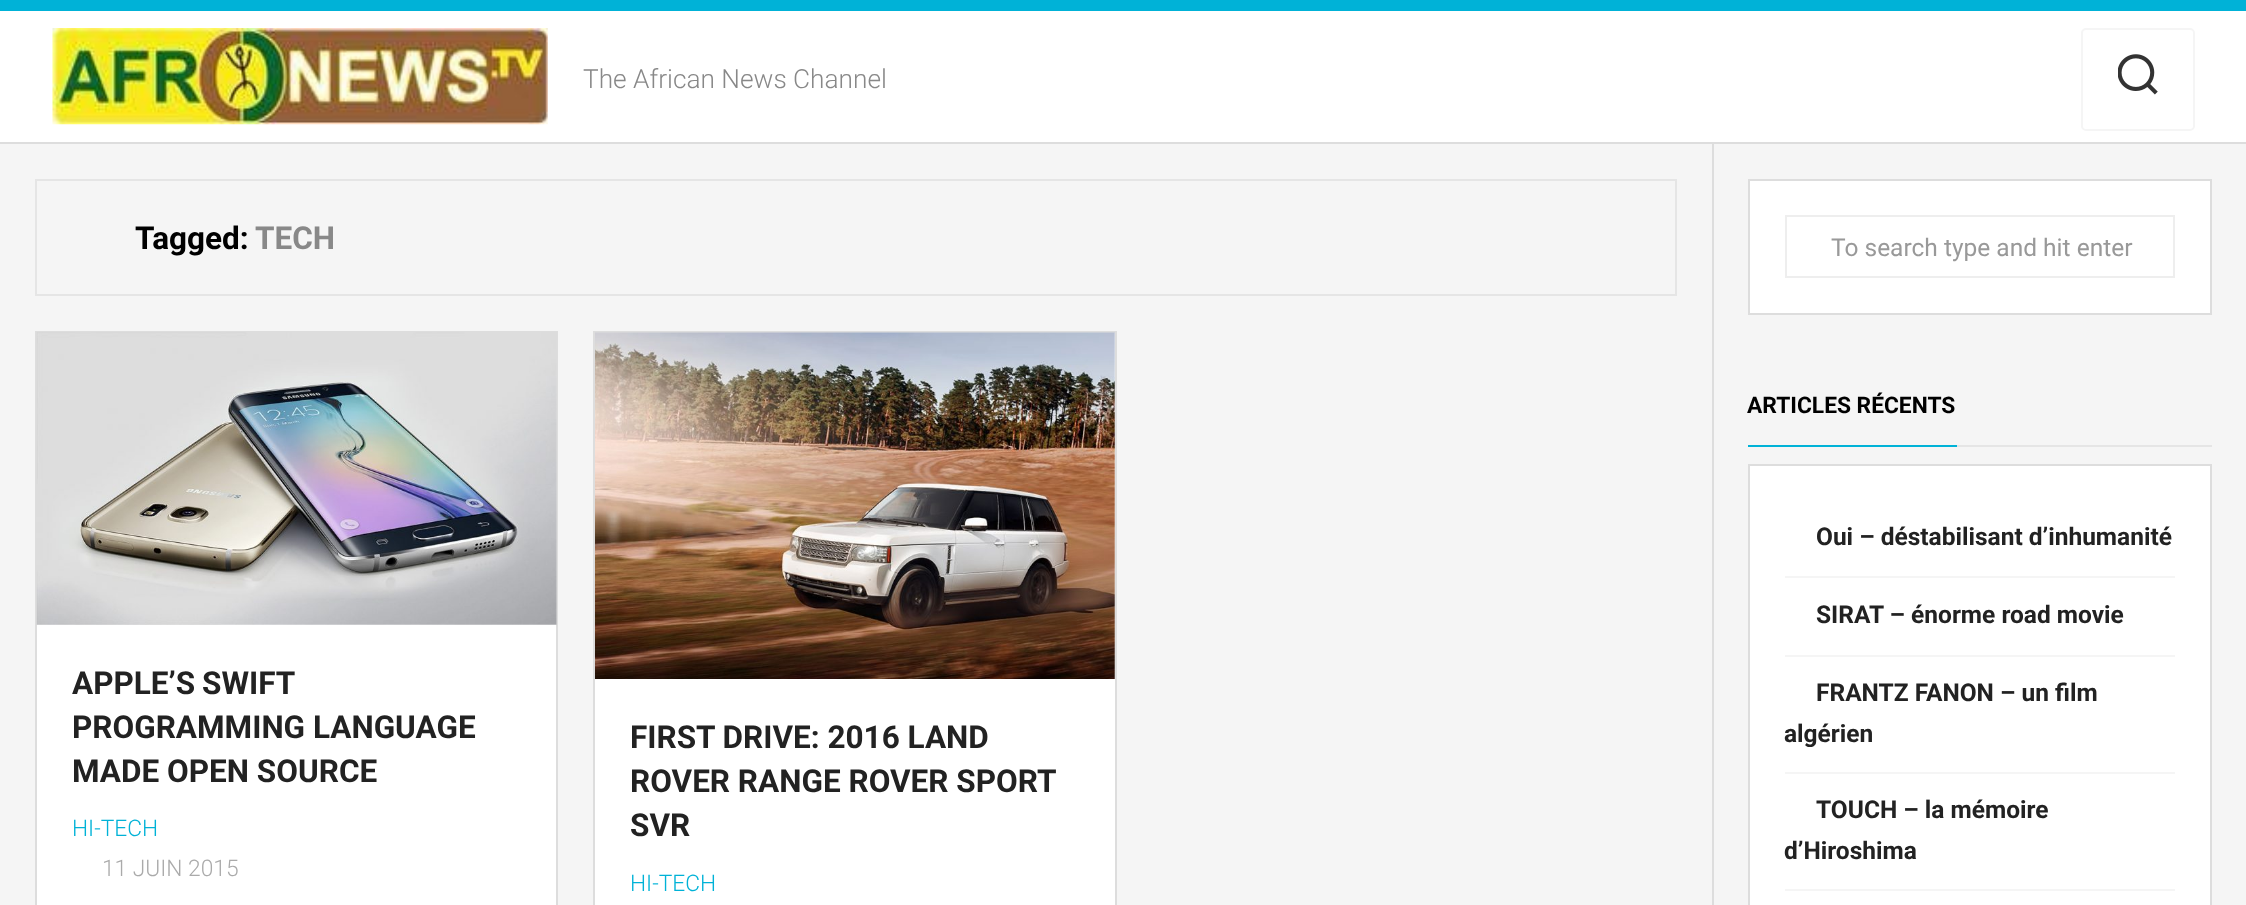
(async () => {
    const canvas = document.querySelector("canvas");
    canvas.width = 2246;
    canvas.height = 905;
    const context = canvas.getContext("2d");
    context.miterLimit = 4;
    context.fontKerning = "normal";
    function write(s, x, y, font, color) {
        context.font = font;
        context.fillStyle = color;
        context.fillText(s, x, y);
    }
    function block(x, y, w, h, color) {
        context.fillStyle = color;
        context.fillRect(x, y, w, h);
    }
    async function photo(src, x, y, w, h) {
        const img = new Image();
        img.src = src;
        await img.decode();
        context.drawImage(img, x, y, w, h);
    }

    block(0, 0, 2246, 905, "rgb(245, 245, 245)");
    block(0, 11, 2246, 131, "rgb(255, 255, 255)");
    block(0, 0, 2246, 11, "rgb(0, 178, 215)");
    block(0, 142, 2246, 2, "rgb(221, 221, 221)");
    await photo("media/1.png", 52, 28, 496, 97);
    write("The African News Channel", 583, 88, "300 26.25px Roboto", "rgb(136, 136, 136)");
    context.beginPath();
    context.roundRect(2082, 29, 112, 101, 4);
    context.strokeStyle = "rgb(245, 245, 245)";
    context.lineWidth = 2;
    context.stroke();
    await photo("media/2.png", 2118, 54, 40, 41);
    context.strokeStyle = "rgb(229, 229, 229)";
    context.strokeRect(36, 180, 1640, 115);
    write("Tagged:", 135, 249, "bold 31.5px Roboto", "rgb(0, 0, 0)");
    write("TECH", 255, 249, "bold 31.5px Roboto", "rgb(136, 136, 136)");
    block(37, 624, 519, 281, "rgb(255, 255, 255)");
    context.strokeStyle = "rgb(221, 221, 221)";
    context.strokeRect(36, 332, 521, 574);
    await photo("media/3.png", 36, 332, 521, 293);
    context.wordSpacing = "-1px";
    write("APPLE’S SWIFT", 72, 694, "bold 31.5px Roboto", "rgb(34, 34, 34)");
    context.wordSpacing = "0px";
    write("PROGRAMMING LANGUAGE", 72, 738, "bold 31.5px Roboto", "rgb(34, 34, 34)");
    write("MADE OPEN SOURCE", 72, 782, "bold 31.5px Roboto", "rgb(34, 34, 34)");
    write("HI-TECH", 72, 836, "300 22.75px Roboto", "rgb(0, 178, 215)");
    write("11 JUIN 2015", 102, 876, "300 22.75px Roboto", "rgb(170, 170, 170)");
    context.fillStyle = "rgb(255, 255, 255)";
    context.beginPath();
    context.rect(594, 332, 522, 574);
    context.fill();
    context.stroke();
    await photo("media/4.png", 595, 332, 520, 347);
    write("FIRST DRIVE: 2016 LAND", 630, 748, "bold 31.5px Roboto", "rgb(34, 34, 34)");
    write("ROVER RANGE ROVER SPORT", 630, 792, "bold 31.5px Roboto", "rgb(34, 34, 34)");
    write("SVR", 630, 836, "bold 31.5px Roboto", "rgb(34, 34, 34)");
    write("HI-TECH", 630, 891, "300 22.75px Roboto", "rgb(0, 178, 215)");
    block(1712, 144, 2, 761, "rgb(221, 221, 221)");
    context.fillStyle = "rgb(255, 255, 255)";
    context.beginPath();
    context.rect(1749, 180, 462, 134);
    context.fill();
    context.stroke();
    context.strokeStyle = "rgb(238, 238, 238)";
    context.strokeRect(1786, 216, 388, 61);
    write("To search type and hit enter", 1831, 256, "24.5px Roboto", "rgb(153, 153, 153)");
    block(1957, 445, 255, 2, "rgb(229, 229, 229)");
    block(1748, 445, 209, 2, "rgb(0, 178, 215)");
    write("ARTICLES RÉCENTS", 1747, 413, "bold 22.75px Roboto", "rgb(0, 0, 0)");
    context.fillStyle = "rgb(255, 255, 255)";
    context.beginPath();
    context.rect(1749, 465, 462, 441);
    context.fill();
    context.strokeStyle = "rgb(221, 221, 221)";
    context.stroke();
    block(1785, 576, 390, 2, "rgb(245, 245, 245)");
    write("Oui – déstabilisant d’inhumanité", 1816, 545, "bold 24.5px Roboto", "rgb(34, 34, 34)");
    block(1785, 655, 390, 2, "rgb(245, 245, 245)");
    write("SIRAT – énorme road movie", 1816, 623, "bold 24.5px Roboto", "rgb(34, 34, 34)");
    block(1785, 772, 390, 2, "rgb(245, 245, 245)");
    write("FRANTZ FANON – un film", 1816, 701, "bold 24.5px Roboto", "rgb(34, 34, 34)");
    write("algérien", 1784, 742, "bold 24.5px Roboto", "rgb(34, 34, 34)");
    block(1785, 889, 390, 2, "rgb(245, 245, 245)");
    write("TOUCH – la mémoire", 1816, 818, "bold 24.5px Roboto", "rgb(34, 34, 34)");
    write("d’Hiroshima", 1784, 859, "bold 24.5px Roboto", "rgb(34, 34, 34)");
})();
